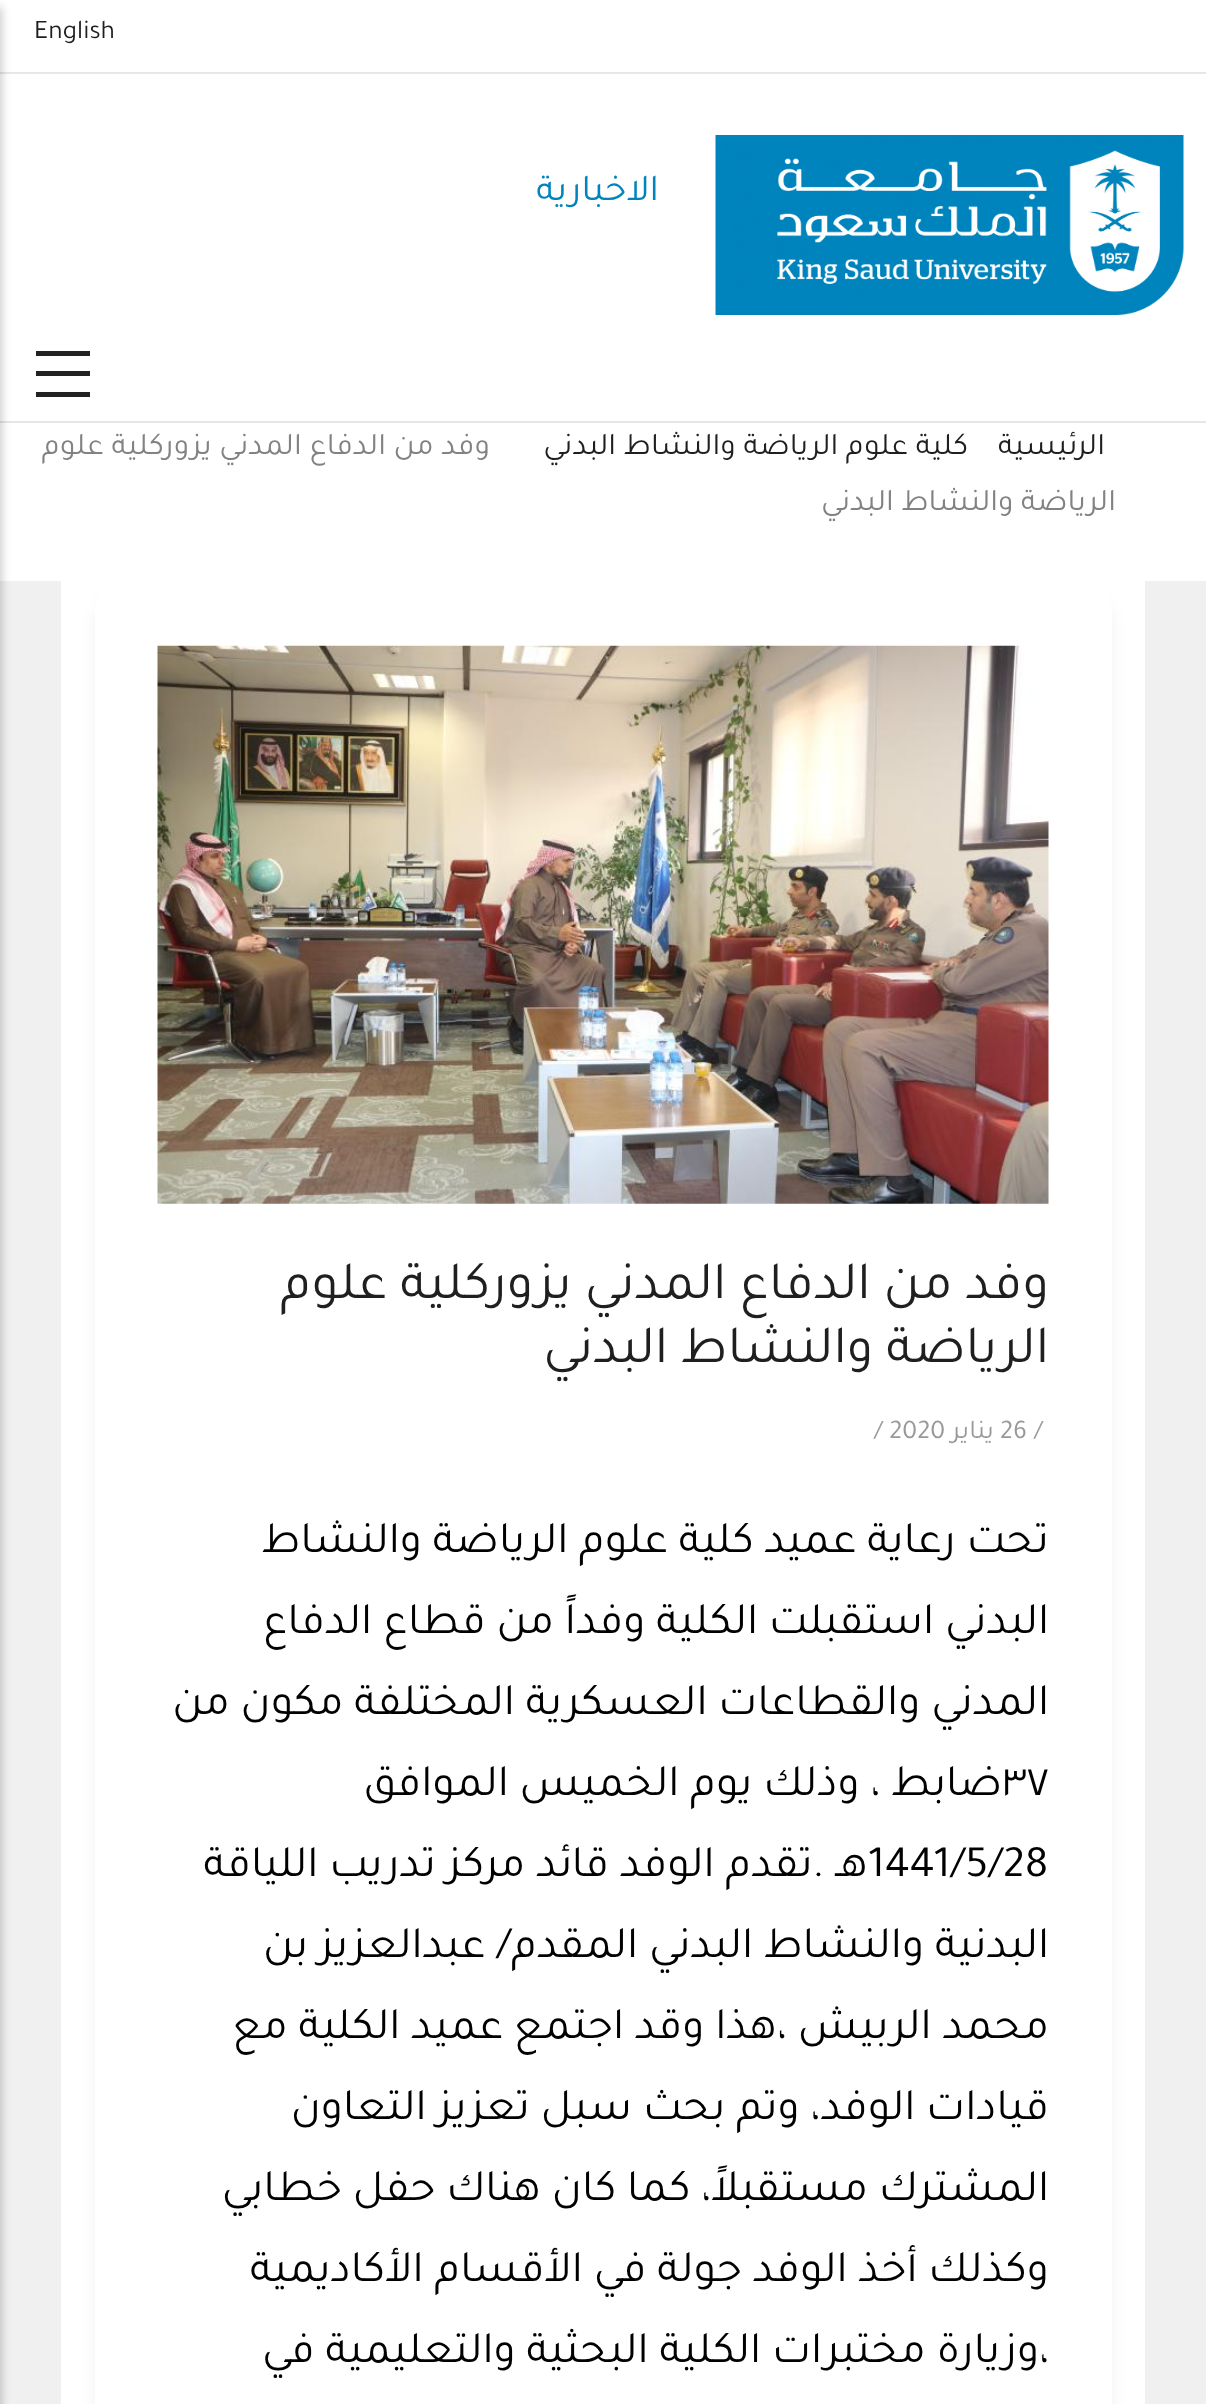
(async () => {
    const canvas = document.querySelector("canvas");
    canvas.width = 1206;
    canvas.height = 2404;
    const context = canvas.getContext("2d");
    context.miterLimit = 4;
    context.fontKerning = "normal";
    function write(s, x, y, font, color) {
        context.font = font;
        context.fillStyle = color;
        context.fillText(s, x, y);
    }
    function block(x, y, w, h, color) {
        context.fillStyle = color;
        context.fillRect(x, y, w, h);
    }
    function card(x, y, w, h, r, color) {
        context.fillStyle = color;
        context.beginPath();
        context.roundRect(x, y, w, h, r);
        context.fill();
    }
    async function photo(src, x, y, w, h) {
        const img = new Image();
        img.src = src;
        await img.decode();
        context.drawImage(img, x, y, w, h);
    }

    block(0, 0, 1206, 2404, "rgb(255, 255, 255)");
    block(0, 581, 1206, 1823, "rgb(240, 240, 240)");
    card(61, 290, 1084, 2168, 54, "rgb(255, 255, 255)");
    block(0, 421, 1206, 2, "rgb(230, 230, 230)");
    block(0, 72, 1206, 2, "rgb(231, 231, 231)");
    write("English", 34, 38, "27px Tajawal", "rgb(31, 31, 31)");
    await photo("media/1.png", 715, 135, 469, 180);
    context.direction = "rtl";
    write("الاخبارية", 659, 200, "38px Tajawal", "rgb(0, 132, 189)");
    block(36, 351, 54, 5, "rgb(34, 34, 34)");
    block(36, 371, 54, 5, "rgb(34, 34, 34)");
    block(36, 392, 54, 5, "rgb(34, 34, 34)");
    context.fillStyle = "rgba(0, 0, 0, 0.2)";
    context.filter = "blur(4.5px)";
    context.beginPath();
    context.rect(-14, 7, 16, 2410);
    context.fill();
    context.filter = "none";
    write("الرئيسية", 1105, 454, "31.5px Tajawal", "rgb(31, 31, 31)");
    write("كلية علوم الرياضة والنشاط البدني", 968, 454, "31.5px Tajawal", "rgb(31, 31, 31)");
    write("وفد من الدفاع المدني يزوركلية علوم", 490, 454, "31.5px Tajawal", "rgb(130, 130, 130)");
    write("الرياضة والنشاط البدني", 1116, 510, "31.5px Tajawal", "rgb(130, 130, 130)");
    context.fillStyle = "rgba(0, 0, 0, 0.15)";
    context.filter = "blur(11px)";
    context.beginPath();
    context.roundRect(104, 605, 999, 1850, 18);
    context.fill();
    context.filter = "none";
    card(95, 583, 1017, 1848, 27, "rgb(255, 255, 255)");
    await photo("media/2.png", 157, 645, 892, 559);
    write("وفد من الدفاع المدني يزوركلية علوم", 1049, 1298, "54px Tajawal", "rgb(31, 31, 31)");
    write("الرياضة والنشاط البدني", 1049, 1362, "54px Tajawal", "rgb(31, 31, 31)");
    context.direction = "ltr";
    write("/", 1034, 1438, "27px Tajawal", "rgb(153, 153, 153)");
    write("26", 1000, 1438, "27px Tajawal", "rgb(153, 153, 153)");
    context.direction = "rtl";
    write("يناير", 994, 1438, "27px Tajawal", "rgb(153, 153, 153)");
    context.direction = "ltr";
    write("/ 2020", 874, 1438, "27px Tajawal", "rgb(153, 153, 153)");
    context.direction = "rtl";
    write("تحت رعاية عميد كلية علوم الرياضة والنشاط", 1049, 1552, "45px Tajawal", "rgb(0, 0, 0)");
    write("البدني استقبلت الكلية وفداً من قطاع الدفاع", 1049, 1633, "45px Tajawal", "rgb(0, 0, 0)");
    write("المدني والقطاعات العسكرية المختلفة مكون من", 1049, 1714, "45px Tajawal", "rgb(0, 0, 0)");
    context.direction = "ltr";
    write("٣٧", 1002, 1795, "45px Tajawal", "rgb(0, 0, 0)");
    context.direction = "rtl";
    write("ضابط ، وذلك يوم الخميس الموافق", 1002, 1795, "45px Tajawal", "rgb(0, 0, 0)");
    context.direction = "ltr";
    write("1441/5/28", 868, 1876, "45px Tajawal", "rgb(0, 0, 0)");
    context.direction = "rtl";
    write("هـ .تقدم الوفد قائد مركز تدريب اللياقة", 868, 1876, "45px Tajawal", "rgb(0, 0, 0)");
    write("البدنية والنشاط البدني المقدم/ عبدالعزيز بن", 1049, 1957, "45px Tajawal", "rgb(0, 0, 0)");
    write("محمد الربيش ،هذا وقد اجتمع عميد الكلية مع", 1049, 2038, "45px Tajawal", "rgb(0, 0, 0)");
    write("قيادات الوفد، وتم بحث سبل تعزيز التعاون", 1049, 2119, "45px Tajawal", "rgb(0, 0, 0)");
    write("المشترك مستقبلاً، كما كان هناك حفل خطابي", 1049, 2200, "45px Tajawal", "rgb(0, 0, 0)");
    write("وكذلك أخذ الوفد جولة في الأقسام الأكاديمية", 1049, 2281, "45px Tajawal", "rgb(0, 0, 0)");
    write("،وزيارة مختبرات الكلية البحثية والتعليمية في", 1049, 2362, "45px Tajawal", "rgb(0, 0, 0)");
})();
